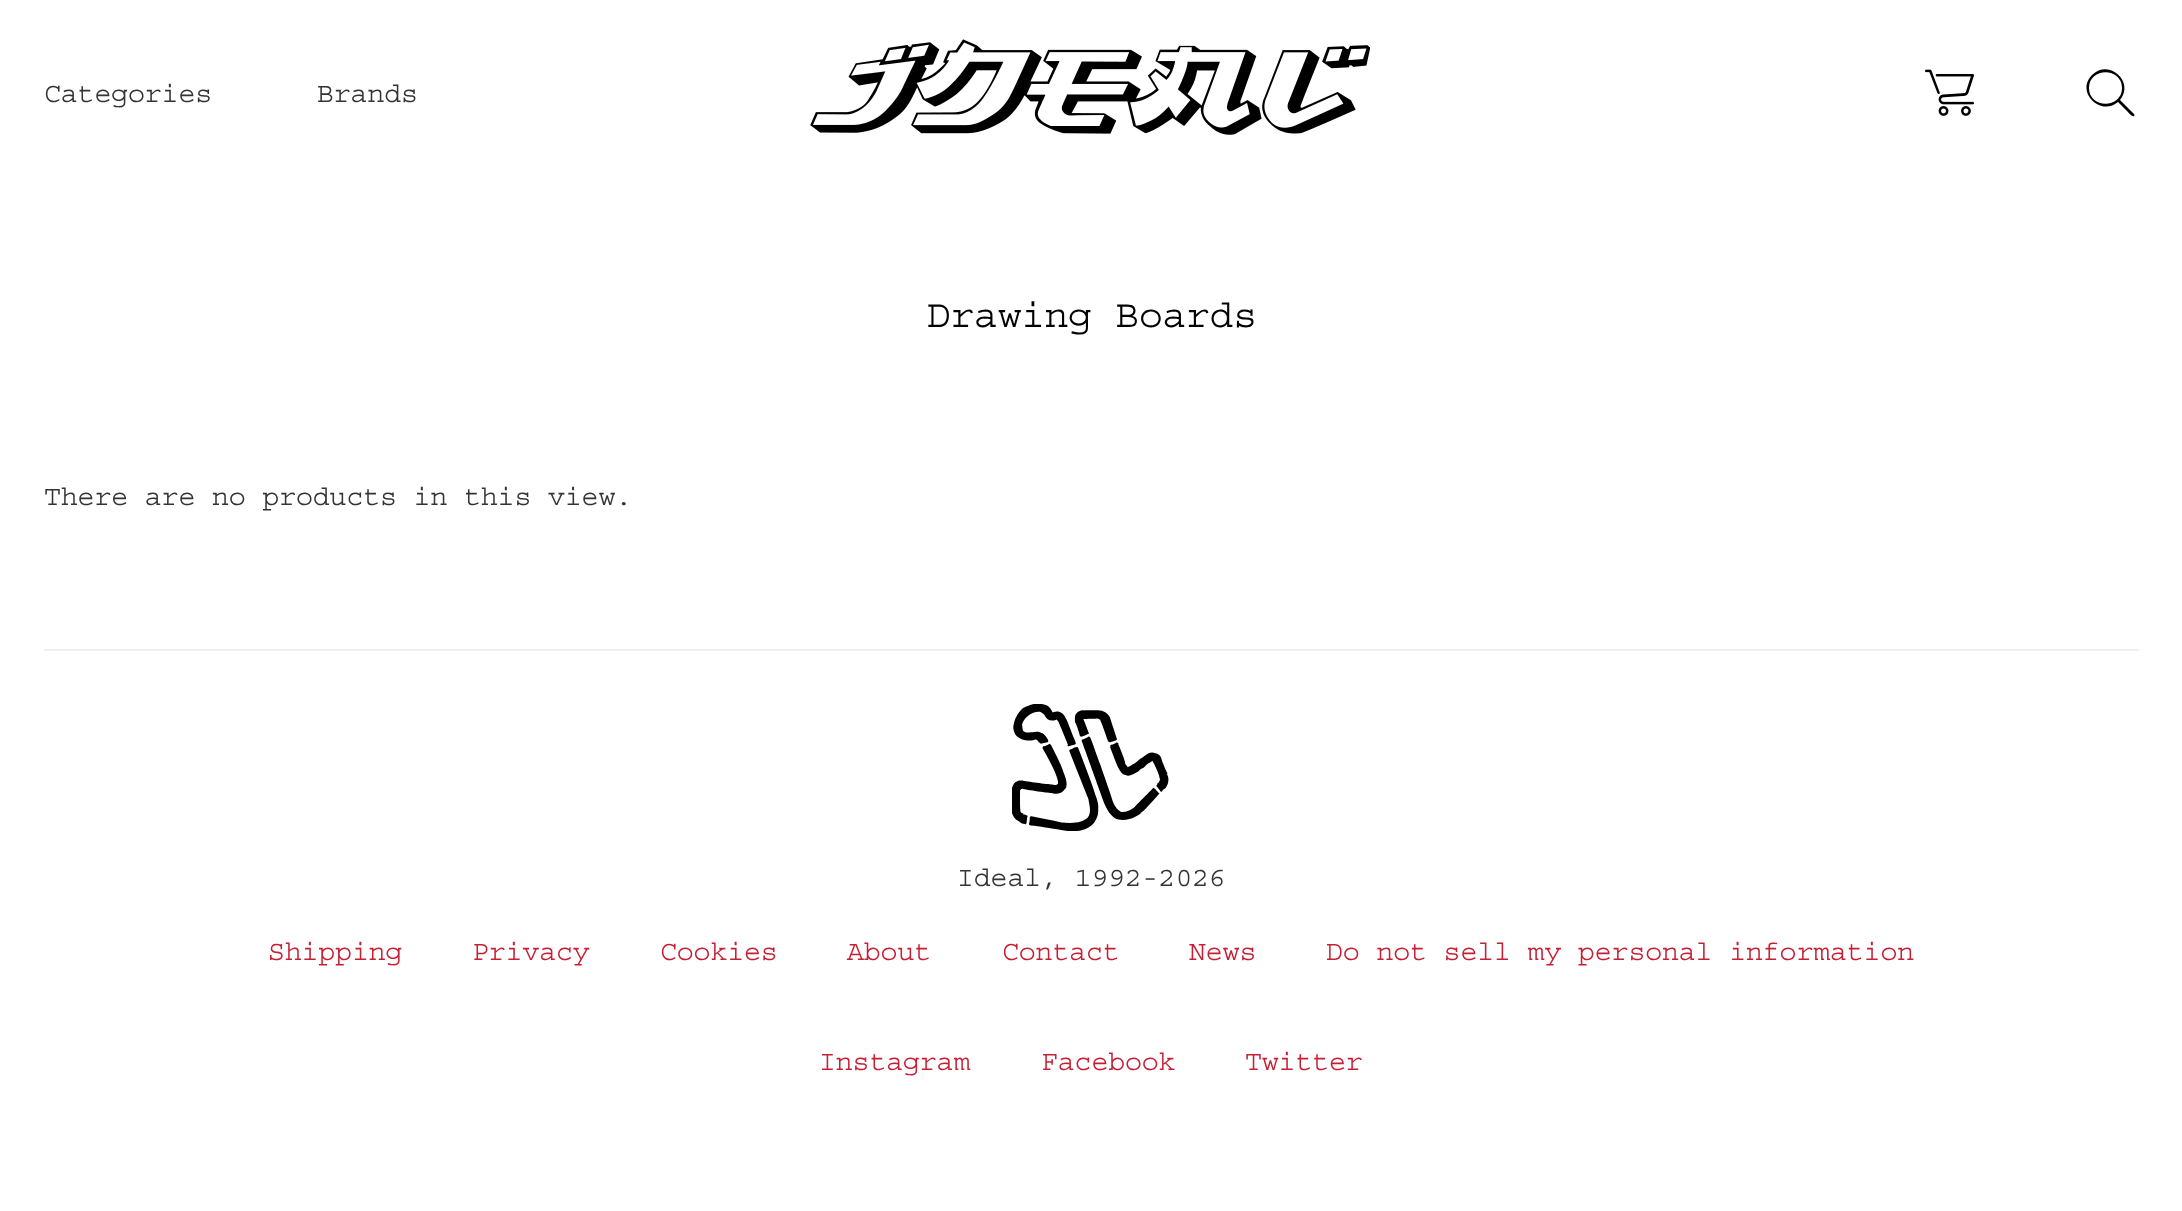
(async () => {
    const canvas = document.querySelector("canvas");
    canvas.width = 2182;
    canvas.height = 1211;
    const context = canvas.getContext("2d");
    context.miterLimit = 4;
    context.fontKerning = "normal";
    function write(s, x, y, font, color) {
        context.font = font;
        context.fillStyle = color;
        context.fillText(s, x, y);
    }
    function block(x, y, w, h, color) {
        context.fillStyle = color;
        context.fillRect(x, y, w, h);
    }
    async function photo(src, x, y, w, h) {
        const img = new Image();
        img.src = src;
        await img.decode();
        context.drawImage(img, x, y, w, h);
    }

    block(0, 0, 2182, 1211, "rgb(255, 255, 255)");
    write("Categories", 44, 102, "500 28px Courier", "rgb(51, 51, 51)");
    write("Brands", 317, 102, "500 28px Courier", "rgb(51, 51, 51)");
    await photo("media/1.png", 810, 39, 560, 96);
    await photo("media/2.png", 1925, 69, 49, 47);
    context.fillStyle = "rgb(0, 0, 0)";
    context.beginPath();
    context.moveTo(2134, 114);
    context.lineTo(2120, 100);
    context.bezierCurveTo(2135, 82, 2109, 58, 2092, 75);
    context.bezierCurveTo(2075, 92, 2101, 117, 2118, 102);
    context.lineTo(2127, 111);
    context.bezierCurveTo(2128, 112, 2132, 117, 2134, 116);
    context.bezierCurveTo(2134, 116, 2135, 115, 2134, 114);
    context.closePath();
    context.moveTo(2089, 88);
    context.bezierCurveTo(2089, 67, 2122, 67, 2122, 88);
    context.bezierCurveTo(2122, 109, 2089, 109, 2089, 88);
    context.closePath();
    context.fill();
    write("Drawing Boards", 927, 327, "500 39.25px Courier", "rgb(0, 0, 0)");
    write("There are no products in this view.", 44, 505, "500 28px Courier", "rgb(51, 51, 51)");
    block(44, 649, 2095, 2, "rgb(240, 240, 240)");
    await photo("media/3.png", 1012, 704, 157, 127);
    write("Ideal, 1992-2026", 957, 886, "500 28px Courier", "rgb(51, 51, 51)");
    write("Shipping", 268, 960, "500 28px Courier", "rgb(198, 31, 52)");
    write("Privacy", 472, 960, "500 28px Courier", "rgb(198, 31, 52)");
    write("Cookies", 660, 960, "500 28px Courier", "rgb(198, 31, 52)");
    write("About", 847, 960, "500 28px Courier", "rgb(198, 31, 52)");
    write("Contact", 1002, 960, "500 28px Courier", "rgb(198, 31, 52)");
    write("News", 1189, 960, "500 28px Courier", "rgb(198, 31, 52)");
    write("Do not sell my personal information", 1326, 960, "500 28px Courier", "rgb(198, 31, 52)");
    write("Instagram", 819, 1070, "500 28px Courier", "rgb(198, 31, 52)");
    write("Facebook", 1041, 1070, "500 28px Courier", "rgb(198, 31, 52)");
    write("Twitter", 1245, 1070, "500 28px Courier", "rgb(198, 31, 52)");
})();
